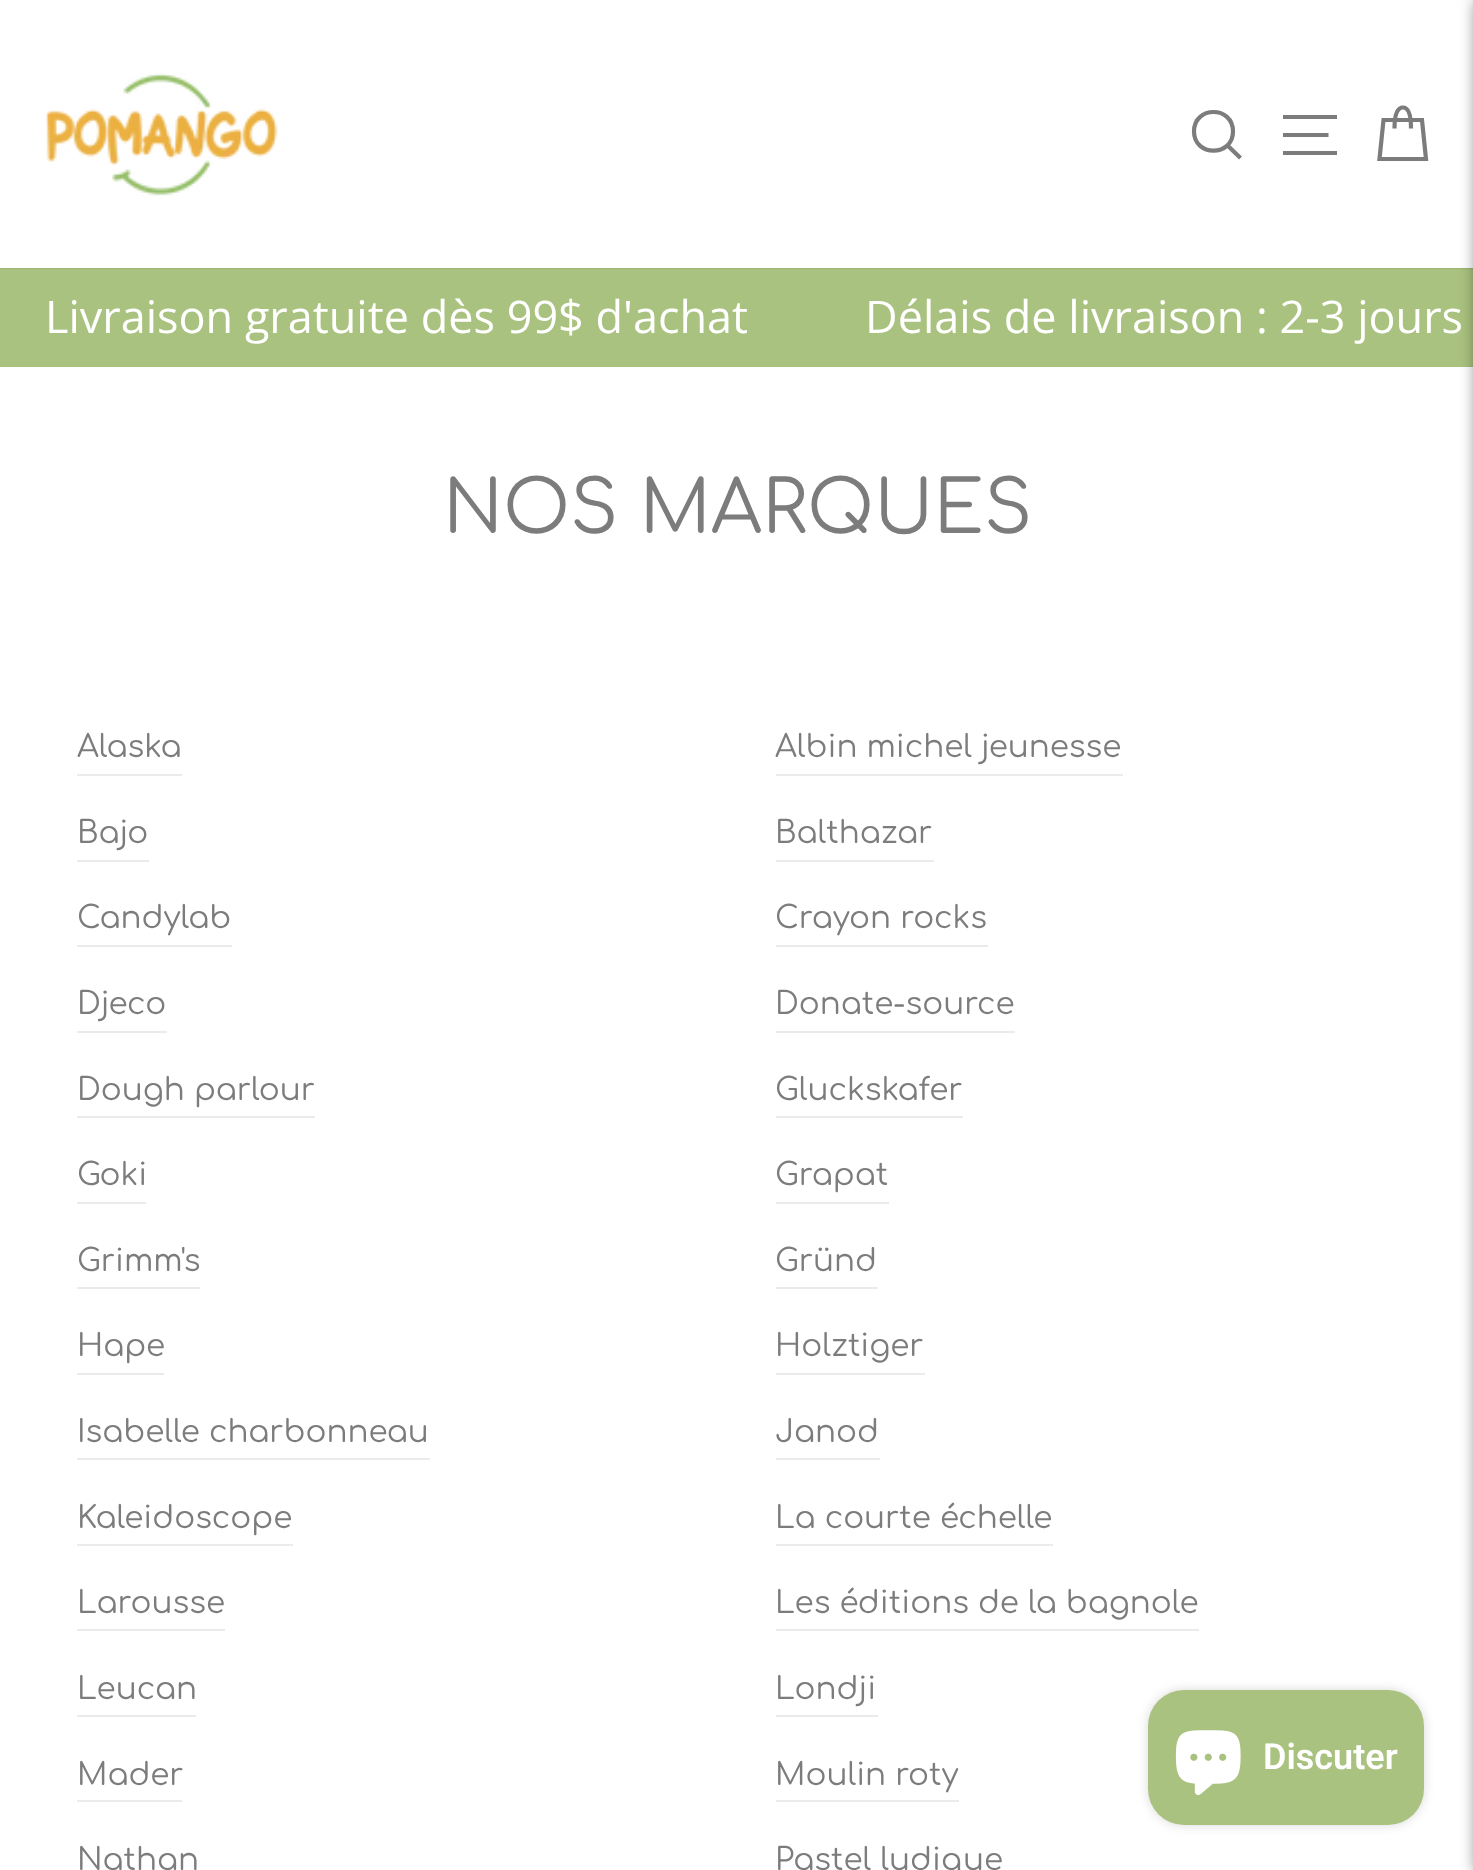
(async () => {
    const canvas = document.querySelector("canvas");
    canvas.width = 1473;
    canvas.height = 1870;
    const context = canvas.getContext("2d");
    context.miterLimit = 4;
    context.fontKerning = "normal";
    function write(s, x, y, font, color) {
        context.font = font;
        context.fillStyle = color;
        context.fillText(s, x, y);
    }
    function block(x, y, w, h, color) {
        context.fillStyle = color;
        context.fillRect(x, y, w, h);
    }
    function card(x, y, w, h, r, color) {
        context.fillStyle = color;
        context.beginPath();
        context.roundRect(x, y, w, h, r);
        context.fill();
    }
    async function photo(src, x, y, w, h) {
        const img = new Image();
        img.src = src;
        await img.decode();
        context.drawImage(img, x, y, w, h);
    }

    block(0, 0, 1473, 1870, "rgb(255, 255, 255)");
    block(0, 268, 1473, 99, "rgb(170, 194, 127)");
    context.fillStyle = "rgba(0, 0, 0, 0.2)";
    context.filter = "blur(1px)";
    context.beginPath();
    context.rect(0, 0, 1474, 268);
    context.fill();
    context.filter = "none";
    block(0, 0, 1473, 268, "rgb(255, 255, 255)");
    context.fillStyle = "rgba(0, 0, 0, 0.5)";
    context.filter = "blur(8px)";
    context.beginPath();
    context.rect(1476, 0, 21, 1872);
    context.fill();
    context.filter = "none";
    await photo("media/1.png", 45, 73, 233, 123);
    context.beginPath();
    context.moveTo(1233, 131.5);
    context.bezierCurveTo(1233, 157, 1194, 157, 1194, 131.5);
    context.bezierCurveTo(1194, 105.5, 1233, 105.5, 1233, 131.5);
    context.closePath();
    context.moveTo(1240.5, 158);
    context.lineTo(1227.5, 145.5);
    context.strokeStyle = "rgb(124, 124, 124)";
    context.lineWidth = 4.2;
    context.stroke();
    context.beginPath();
    context.moveTo(1283, 117);
    context.lineTo(1337, 117);
    context.moveTo(1283, 135);
    context.lineTo(1328.5, 135);
    context.moveTo(1283, 153);
    context.lineTo(1337, 153);
    context.stroke();
    context.beginPath();
    context.moveTo(1394.5, 128.5);
    context.bezierCurveTo(1394.5, 112, 1398, 107.5, 1403, 107.5);
    context.bezierCurveTo(1407.5, 107.5, 1411, 112, 1411, 128.5);
    context.moveTo(1383.5, 120);
    context.lineTo(1422, 120);
    context.lineTo(1426, 159);
    context.lineTo(1379.5, 159);
    context.closePath();
    context.stroke();
    write("Livraison gratuite dès 99$ d'achat          Délais de livraison : 2-3 jours", 45, 333, "45px Open Sans", "rgb(255, 255, 255)");
    write("NOS MARQUES", 443, 533, "72.75px Comfortaa", "rgb(124, 124, 124)");
    block(77, 774, 105, 2, "rgb(235, 235, 235)");
    write("Alaska", 77, 757, "31px Comfortaa", "rgb(124, 124, 124)");
    block(776, 774, 347, 2, "rgb(235, 235, 235)");
    write("Albin michel jeunesse", 775, 757, "31px Comfortaa", "rgb(124, 124, 124)");
    block(77, 860, 72, 2, "rgb(235, 235, 235)");
    write("Bajo", 77, 843, "31px Comfortaa", "rgb(124, 124, 124)");
    block(776, 860, 158, 2, "rgb(235, 235, 235)");
    write("Balthazar", 775, 843, "31px Comfortaa", "rgb(124, 124, 124)");
    block(77, 945, 155, 2, "rgb(235, 235, 235)");
    write("Candylab", 77, 928, "31px Comfortaa", "rgb(124, 124, 124)");
    block(776, 945, 212, 2, "rgb(235, 235, 235)");
    write("Crayon rocks", 775, 928, "31px Comfortaa", "rgb(124, 124, 124)");
    block(77, 1031, 90, 2, "rgb(235, 235, 235)");
    write("Djeco", 77, 1014, "31px Comfortaa", "rgb(124, 124, 124)");
    block(776, 1031, 239, 2, "rgb(235, 235, 235)");
    write("Donate-source", 775, 1014, "31px Comfortaa", "rgb(124, 124, 124)");
    block(77, 1116, 238, 2, "rgb(235, 235, 235)");
    write("Dough parlour", 77, 1100, "31px Comfortaa", "rgb(124, 124, 124)");
    block(776, 1116, 187, 2, "rgb(235, 235, 235)");
    write("Gluckskafer", 775, 1100, "31px Comfortaa", "rgb(124, 124, 124)");
    block(77, 1202, 69, 2, "rgb(235, 235, 235)");
    write("Goki", 77, 1185, "31px Comfortaa", "rgb(124, 124, 124)");
    block(776, 1202, 113, 2, "rgb(235, 235, 235)");
    write("Grapat", 775, 1185, "31px Comfortaa", "rgb(124, 124, 124)");
    block(77, 1287, 123, 2, "rgb(235, 235, 235)");
    write("Grimm's", 77, 1271, "31px Comfortaa", "rgb(124, 124, 124)");
    block(776, 1287, 102, 2, "rgb(235, 235, 235)");
    write("Gründ", 775, 1271, "31px Comfortaa", "rgb(124, 124, 124)");
    block(77, 1373, 87, 2, "rgb(235, 235, 235)");
    write("Hape", 77, 1356, "31px Comfortaa", "rgb(124, 124, 124)");
    block(776, 1373, 149, 2, "rgb(235, 235, 235)");
    write("Holztiger", 775, 1356, "31px Comfortaa", "rgb(124, 124, 124)");
    block(77, 1458, 353, 2, "rgb(235, 235, 235)");
    write("Isabelle charbonneau", 77, 1442, "31px Comfortaa", "rgb(124, 124, 124)");
    block(776, 1458, 104, 2, "rgb(235, 235, 235)");
    write("Janod", 775, 1442, "31px Comfortaa", "rgb(124, 124, 124)");
    block(77, 1544, 216, 2, "rgb(235, 235, 235)");
    write("Kaleidoscope", 77, 1528, "31px Comfortaa", "rgb(124, 124, 124)");
    block(776, 1544, 277, 2, "rgb(235, 235, 235)");
    write("La courte échelle", 775, 1528, "31px Comfortaa", "rgb(124, 124, 124)");
    block(77, 1629, 148, 2, "rgb(235, 235, 235)");
    write("Larousse", 77, 1613, "31px Comfortaa", "rgb(124, 124, 124)");
    block(776, 1629, 423, 2, "rgb(235, 235, 235)");
    write("Les éditions de la bagnole", 775, 1613, "31px Comfortaa", "rgb(124, 124, 124)");
    block(77, 1715, 119, 2, "rgb(235, 235, 235)");
    write("Leucan", 77, 1699, "31px Comfortaa", "rgb(124, 124, 124)");
    block(776, 1715, 102, 2, "rgb(235, 235, 235)");
    write("Londji", 775, 1699, "31px Comfortaa", "rgb(124, 124, 124)");
    block(77, 1800, 105, 2, "rgb(235, 235, 235)");
    write("Mader", 77, 1785, "31px Comfortaa", "rgb(124, 124, 124)");
    block(776, 1800, 183, 2, "rgb(235, 235, 235)");
    write("Moulin roty", 775, 1785, "31px Comfortaa", "rgb(124, 124, 124)");
    write("Nathan", 77, 1870, "31px Comfortaa", "rgb(124, 124, 124)");
    write("Pastel ludique", 775, 1870, "31px Comfortaa", "rgb(124, 124, 124)");
    context.fillStyle = "rgba(0, 0, 0, 0.15)";
    context.filter = "blur(5.5px)";
    context.beginPath();
    context.roundRect(1148, 1690, 276, 135, 36);
    context.fill();
    context.filter = "none";
    card(1148, 1690, 276, 135, 36, "rgb(170, 194, 127)");
    await photo("media/2.png", 1175, 1730, 66, 65);
    write("Discuter", 1263, 1769, "600 36px Roboto", "rgb(255, 255, 255)");
})();
